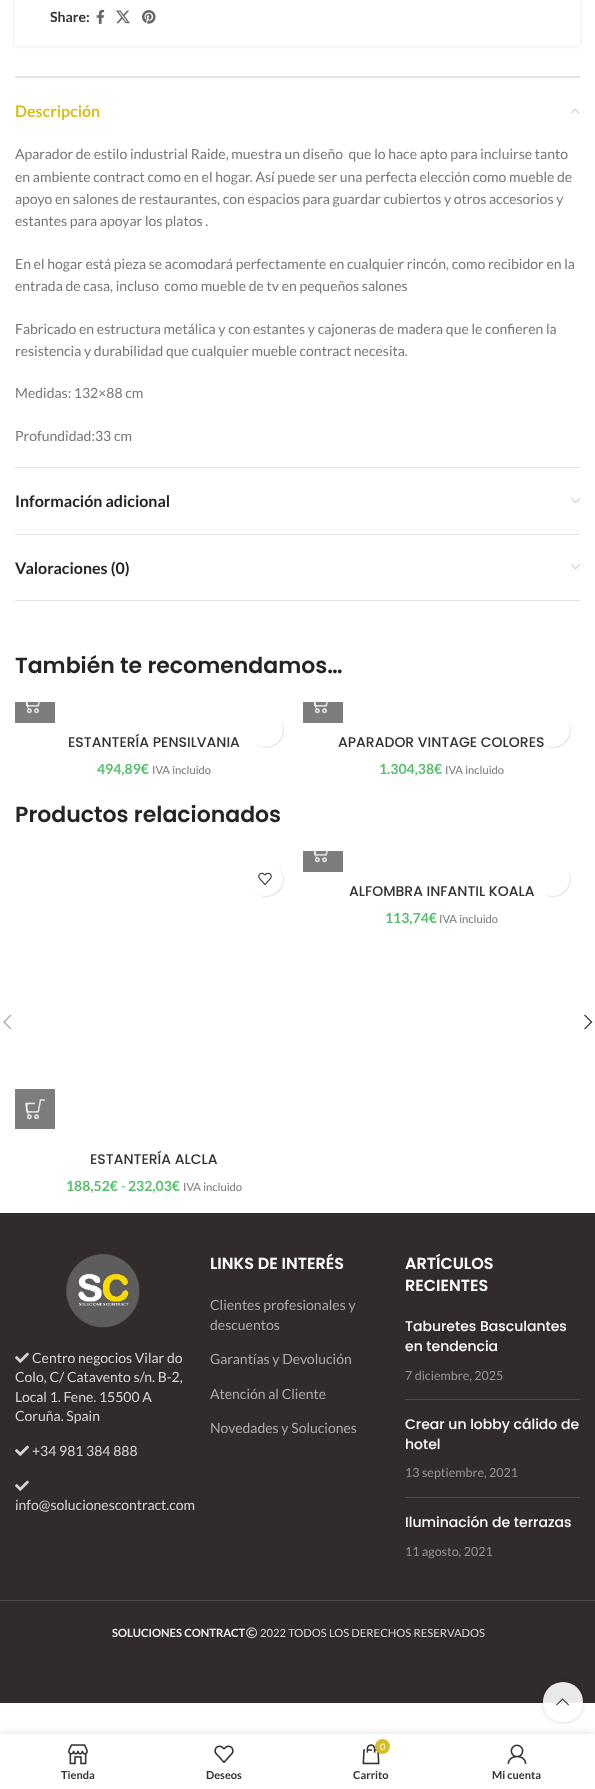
(async () => {
    const canvas = document.querySelector("canvas");
    canvas.width = 595;
    canvas.height = 1789;
    const context = canvas.getContext("2d");
    context.miterLimit = 4;
    context.fontKerning = "normal";
    function write(s, x, y, font, color) {
        context.font = font;
        context.fillStyle = color;
        context.fillText(s, x, y);
    }
    function block(x, y, w, h, color) {
        context.fillStyle = color;
        context.fillRect(x, y, w, h);
    }
    async function photo(src, x, y, w, h) {
        const img = new Image();
        img.src = src;
        await img.decode();
        context.drawImage(img, x, y, w, h);
    }

    block(0, 0, 595, 1789, "rgb(255, 255, 255)");
    context.save();
    context.beginPath();
    context.moveTo(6, 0);
    context.lineTo(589, 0);
    context.lineTo(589, 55);
    context.lineTo(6, 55);
    context.closePath();
    context.moveTo(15, -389);
    context.lineTo(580, -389);
    context.lineTo(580, 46);
    context.lineTo(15, 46);
    context.closePath();
    context.clip("evenodd");
    context.fillStyle = "rgba(0, 0, 0, 0.1)";
    context.filter = "blur(2.5px)";
    context.beginPath();
    context.rect(15, -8, 565, 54);
    context.fill();
    context.filter = "none";
    context.restore();
    write("Share:", 50, 22, "bold 14px Lato", "rgb(51, 51, 51)");
    await photo("media/1.png", 96, 9, 9, 15);
    await photo("media/2.png", 116, 10, 14, 14);
    await photo("media/3.png", 142, 10, 14, 14);
    block(15, 76, 565, 2, "rgb(228, 228, 228)");
    block(15, 467, 565, 1, "rgb(228, 228, 228)");
    write("Descripción", 15, 117, "bold 16px Lato", "rgb(214, 191, 34)");
    await photo("media/4.png", 570, 108, 10, 6);
    write("Aparador de estilo industrial Raide, muestra un diseño  que lo hace apto para incluirse tanto", 15, 159, "14px Lato", "rgb(119, 119, 119)");
    write("en ambiente contract como en el hogar. Así puede ser una perfecta elección como mueble de", 15, 182, "14px Lato", "rgb(119, 119, 119)");
    write("apoyo en salones de restaurantes, con espacios para guardar cubiertos y otros accesorios y", 15, 204, "14px Lato", "rgb(119, 119, 119)");
    write("estantes para apoyar los platos .", 15, 226, "14px Lato", "rgb(119, 119, 119)");
    write("En el hogar está pieza se acomodará perfectamente en cualquier rincón, como recibidor en la", 15, 269, "14px Lato", "rgb(119, 119, 119)");
    write("entrada de casa, incluso  como mueble de tv en pequeños salones", 15, 291, "14px Lato", "rgb(119, 119, 119)");
    write("Fabricado en estructura metálica y con estantes y cajoneras de madera que le confieren la", 15, 334, "14px Lato", "rgb(119, 119, 119)");
    write("resistencia y durabilidad que cualquier mueble contract necesita.", 15, 356, "14px Lato", "rgb(119, 119, 119)");
    write("Medidas: 132×88 cm", 15, 398, "14px Lato", "rgb(119, 119, 119)");
    write("Profundidad:33 cm", 15, 441, "14px Lato", "rgb(119, 119, 119)");
    block(15, 534, 565, 1, "rgb(228, 228, 228)");
    write("Información adicional", 15, 507, "bold 16px Lato", "rgb(36, 36, 36)");
    await photo("media/5.png", 571, 498, 10, 5);
    block(15, 600, 565, 1, "rgb(228, 228, 228)");
    write("Valoraciones (0)", 15, 574, "bold 16px Lato", "rgb(36, 36, 36)");
    await photo("media/5.png", 571, 564, 10, 5);
    write("También te recomendamos…", 15, 673, "600 22px Poppins", "rgb(36, 36, 36)");
    block(15, 702, 40, 21, "rgb(125, 125, 125)");
    await photo("media/6.png", 26, 702, 14, 12);
    context.save();
    context.beginPath();
    context.rect(15, 702, 40, 21);
    context.clip();
    context.beginPath();
    context.moveTo(29, 709);
    context.bezierCurveTo(25.5, 705.5, 25.5, 700.5, 29, 697);
    context.strokeStyle = "rgb(255, 255, 255)";
    context.stroke();
    context.restore();
    context.save();
    context.beginPath();
    context.moveTo(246, 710);
    context.lineTo(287, 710);
    context.lineTo(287, 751);
    context.lineTo(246, 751);
    context.closePath();
    context.moveTo(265.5, 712);
    context.bezierCurveTo(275, 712, 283, 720, 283, 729.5);
    context.bezierCurveTo(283, 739, 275, 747, 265.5, 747);
    context.bezierCurveTo(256, 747, 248, 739, 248, 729.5);
    context.bezierCurveTo(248, 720, 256, 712, 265.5, 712);
    context.closePath();
    context.clip("evenodd");
    context.fillStyle = "rgba(0, 0, 0, 0.1)";
    context.filter = "blur(0.5px)";
    context.beginPath();
    context.roundRect(249, 713, 35, 35, 17.5);
    context.fill();
    context.filter = "none";
    context.restore();
    context.fillStyle = "rgb(255, 255, 255)";
    context.beginPath();
    context.roundRect(248, 712, 35, 11, [17.5, 17.5, 0, 0]);
    context.fill();
    write("ESTANTERÍA PENSILVANIA", 68, 747, "500 14px Poppins", "rgb(51, 51, 51)");
    write("494,89€", 97, 774, "bold 14px Lato", "rgb(87, 191, 109)");
    write("IVA incluido", 152, 774, "11.25px Lato", "rgb(119, 119, 119)");
    block(303, 702, 40, 21, "rgb(125, 125, 125)");
    await photo("media/6.png", 314, 702, 14, 12);
    context.save();
    context.beginPath();
    context.rect(303, 702, 40, 21);
    context.clip();
    context.beginPath();
    context.moveTo(317, 709);
    context.bezierCurveTo(313.5, 705.5, 313.5, 700.5, 317, 697);
    context.strokeStyle = "rgb(255, 255, 255)";
    context.stroke();
    context.restore();
    context.save();
    context.beginPath();
    context.moveTo(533, 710);
    context.lineTo(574, 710);
    context.lineTo(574, 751);
    context.lineTo(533, 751);
    context.closePath();
    context.moveTo(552.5, 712);
    context.bezierCurveTo(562, 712, 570, 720, 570, 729.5);
    context.bezierCurveTo(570, 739, 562, 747, 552.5, 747);
    context.bezierCurveTo(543, 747, 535, 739, 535, 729.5);
    context.bezierCurveTo(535, 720, 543, 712, 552.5, 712);
    context.closePath();
    context.clip("evenodd");
    context.fillStyle = "rgba(0, 0, 0, 0.1)";
    context.filter = "blur(0.5px)";
    context.beginPath();
    context.roundRect(536, 713, 35, 35, 17.5);
    context.fill();
    context.filter = "none";
    context.restore();
    context.fillStyle = "rgb(255, 255, 255)";
    context.beginPath();
    context.roundRect(535, 712, 35, 11, [17.5, 17.5, 0, 0]);
    context.fill();
    write("APARADOR VINTAGE COLORES", 338, 747, "500 14px Poppins", "rgb(51, 51, 51)");
    write("1.304,38€", 379, 774, "bold 14px Lato", "rgb(87, 191, 109)");
    write("IVA incluido", 445, 774, "11.25px Lato", "rgb(119, 119, 119)");
    write("Productos relacionados", 15, 822, "600 22px Poppins", "rgb(36, 36, 36)");
    block(303, 851, 40, 21, "rgb(125, 125, 125)");
    await photo("media/6.png", 314, 851, 14, 12);
    context.save();
    context.beginPath();
    context.rect(303, 851, 40, 21);
    context.clip();
    context.beginPath();
    context.moveTo(317, 858);
    context.bezierCurveTo(313.5, 854.5, 313.5, 849.5, 317, 846);
    context.strokeStyle = "rgb(255, 255, 255)";
    context.stroke();
    context.restore();
    context.save();
    context.beginPath();
    context.moveTo(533, 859);
    context.lineTo(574, 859);
    context.lineTo(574, 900);
    context.lineTo(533, 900);
    context.closePath();
    context.moveTo(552.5, 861);
    context.bezierCurveTo(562, 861, 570, 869, 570, 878.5);
    context.bezierCurveTo(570, 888, 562, 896, 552.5, 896);
    context.bezierCurveTo(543, 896, 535, 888, 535, 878.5);
    context.bezierCurveTo(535, 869, 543, 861, 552.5, 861);
    context.closePath();
    context.clip("evenodd");
    context.fillStyle = "rgba(0, 0, 0, 0.1)";
    context.filter = "blur(0.5px)";
    context.beginPath();
    context.roundRect(536, 862, 35, 35, 17.5);
    context.fill();
    context.filter = "none";
    context.restore();
    context.fillStyle = "rgb(255, 255, 255)";
    context.beginPath();
    context.roundRect(535, 861, 35, 11, [17.5, 17.5, 0, 0]);
    context.fill();
    write("ALFOMBRA INFANTIL KOALA", 349, 896, "500 14px Poppins", "rgb(51, 51, 51)");
    write("113,74€", 385, 923, "bold 14px Lato", "rgb(87, 191, 109)");
    write("IVA incluido", 439, 923, "11.25px Lato", "rgb(119, 119, 119)");
    context.fillStyle = "rgba(0, 0, 0, 0.1)";
    context.filter = "blur(0.5px)";
    context.beginPath();
    context.roundRect(249, 862, 35, 35, 17.5);
    context.fill();
    context.filter = "none";
    context.fillStyle = "rgb(255, 255, 255)";
    context.beginPath();
    context.arc(265.5, 878.5, 17.5, 0, Math.PI * 2);
    context.fill();
    await photo("media/7.png", 258, 872, 14, 13);
    block(15, 1089, 40, 40, "rgb(125, 125, 125)");
    await photo("media/8.png", 25, 1099, 20, 21);
    context.beginPath();
    context.moveTo(29, 1115);
    context.bezierCurveTo(25.5, 1111.5, 25.5, 1106.5, 29, 1103);
    context.strokeStyle = "rgb(255, 255, 255)";
    context.stroke();
    write("ESTANTERÍA ALCLA", 90, 1164, "500 14px Poppins", "rgb(51, 51, 51)");
    write("188,52€", 66, 1191, "bold 14px Lato", "rgb(87, 191, 109)");
    write("-", 121, 1191, "14px Lato", "rgb(87, 191, 109)");
    write("232,03€", 128, 1191, "bold 14px Lato", "rgb(87, 191, 109)");
    write("IVA incluido", 183, 1191, "11.25px Lato", "rgb(119, 119, 119)");
    await photo("media/9.png", 3, 1014, 9, 16);
    await photo("media/10.png", 584, 1014, 9, 16);
    block(0, 1213, 595, 490, "rgb(50, 43, 43)");
    await photo("media/11.png", 66, 1253, 74, 75);
    await photo("media/12.png", 15, 1352, 14, 11);
    write("Centro negocios Vilar do", 32, 1363, "14px Lato", "rgb(214, 213, 213)");
    write("Colo, C/ Catavento s/n. B-2,", 15, 1382, "14px Lato", "rgb(214, 213, 213)");
    write("Local 1. Fene. 15500 A", 15, 1402, "14px Lato", "rgb(214, 213, 213)");
    write("Coruña. Spain", 15, 1421, "14px Lato", "rgb(214, 213, 213)");
    await photo("media/12.png", 15, 1445, 14, 11);
    write("+34 981 384 888", 32, 1456, "14px Lato", "rgb(214, 213, 213)");
    await photo("media/12.png", 15, 1480, 14, 11);
    write("info@solucionescontract.com", 15, 1510, "14px Lato", "rgb(214, 213, 213)");
    write("LINKS DE INTERÉS", 210, 1269, "600 16px Poppins", "rgb(255, 255, 255)");
    write("Clientes profesionales y", 210, 1310, "14px Lato", "rgb(173, 170, 170)");
    write("descuentos", 210, 1330, "14px Lato", "rgb(173, 170, 170)");
    write("Garantías y Devolución", 210, 1364, "14px Lato", "rgb(173, 170, 170)");
    write("Atención al Cliente", 210, 1399, "14px Lato", "rgb(173, 170, 170)");
    write("Novedades y Soluciones", 210, 1433, "14px Lato", "rgb(173, 170, 170)");
    write("ARTÍCULOS", 405, 1269, "600 16px Poppins", "rgb(255, 255, 255)");
    write("RECIENTES", 405, 1291, "600 16px Poppins", "rgb(255, 255, 255)");
    block(405, 1399, 175, 1, "rgb(81, 75, 75)");
    write("Taburetes Basculantes", 405, 1331, "500 14px Poppins", "rgb(255, 255, 255)");
    write("en tendencia", 405, 1351, "500 14px Poppins", "rgb(255, 255, 255)");
    write("7 diciembre, 2025", 405, 1380, "12.5px Lato", "rgb(153, 149, 149)");
    block(405, 1497, 175, 1, "rgb(81, 75, 75)");
    write("Crear un lobby cálido de", 405, 1429, "500 14px Poppins", "rgb(255, 255, 255)");
    write("hotel", 405, 1449, "500 14px Poppins", "rgb(255, 255, 255)");
    write("13 septiembre, 2021", 405, 1477, "12.5px Lato", "rgb(153, 149, 149)");
    write("Iluminación de terrazas", 405, 1527, "500 14px Poppins", "rgb(255, 255, 255)");
    write("11 agosto, 2021", 405, 1556, "12.5px Lato", "rgb(153, 149, 149)");
    block(0, 1600, 595, 1, "rgb(81, 75, 75)");
    write("SOLUCIONES CONTRACT", 112, 1637, "bold 11.25px Lato", "rgb(235, 234, 234)");
    await photo("media/13.png", 246, 1627, 11, 12);
    write("2022 TODOS LOS DERECHOS RESERVADOS", 260, 1637, "11.25px Lato", "rgb(214, 213, 213)");
    context.save();
    context.beginPath();
    context.moveTo(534, 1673);
    context.lineTo(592, 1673);
    context.lineTo(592, 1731);
    context.lineTo(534, 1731);
    context.closePath();
    context.moveTo(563, 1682);
    context.bezierCurveTo(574, 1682, 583, 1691, 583, 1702);
    context.bezierCurveTo(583, 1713, 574, 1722, 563, 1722);
    context.bezierCurveTo(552, 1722, 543, 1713, 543, 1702);
    context.bezierCurveTo(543, 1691, 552, 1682, 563, 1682);
    context.closePath();
    context.clip("evenodd");
    context.fillStyle = "rgba(0, 0, 0, 0.17)";
    context.filter = "blur(2.5px)";
    context.beginPath();
    context.roundRect(543, 1682, 40, 40, 20);
    context.fill();
    context.filter = "none";
    context.restore();
    context.fillStyle = "rgba(255, 255, 255, 0.9)";
    context.beginPath();
    context.arc(563, 1702, 20, 0, Math.PI * 2);
    context.fill();
    await photo("media/14.png", 556, 1698, 13, 8);
    context.fillStyle = "rgba(0, 0, 0, 0.12)";
    context.filter = "blur(4.5px)";
    context.beginPath();
    context.rect(0, 1734, 595, 55);
    context.fill();
    context.filter = "none";
    block(0, 1734, 595, 55, "rgb(255, 255, 255)");
    await photo("media/15.png", 68, 1744, 20, 21);
    write("Tienda", 61, 1779, "bold 11px Lato", "rgb(51, 51, 51)");
    await photo("media/16.png", 214, 1745, 20, 18);
    write("Deseos", 206, 1779, "bold 11px Lato", "rgb(51, 51, 51)");
    await photo("media/17.png", 362, 1744, 18, 21);
    context.fillStyle = "rgb(214, 191, 34)";
    context.beginPath();
    context.arc(382.5, 1746.5, 7.5, 0, Math.PI * 2);
    context.fill();
    write("0", 380, 1750, "9px Lato", "rgb(255, 255, 255)");
    write("Carrito", 353, 1779, "bold 11px Lato", "rgb(51, 51, 51)");
    await photo("media/18.png", 507, 1744, 20, 20);
    write("Mi cuenta", 492, 1779, "bold 11px Lato", "rgb(51, 51, 51)");
})();
